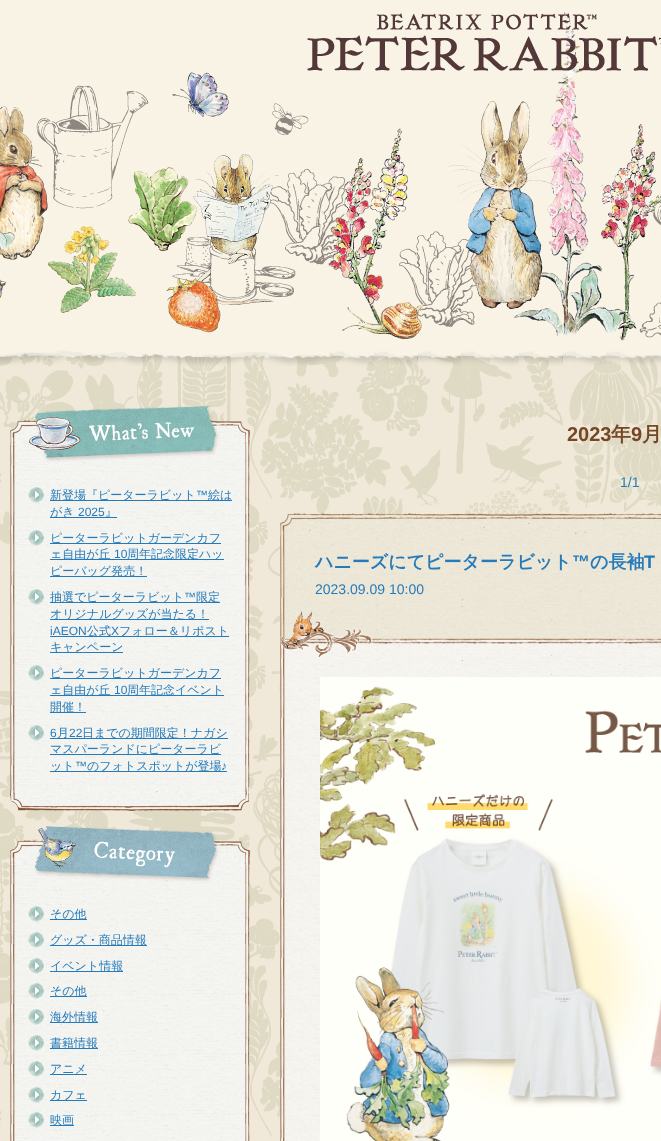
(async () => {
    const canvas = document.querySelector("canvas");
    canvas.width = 661;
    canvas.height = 1141;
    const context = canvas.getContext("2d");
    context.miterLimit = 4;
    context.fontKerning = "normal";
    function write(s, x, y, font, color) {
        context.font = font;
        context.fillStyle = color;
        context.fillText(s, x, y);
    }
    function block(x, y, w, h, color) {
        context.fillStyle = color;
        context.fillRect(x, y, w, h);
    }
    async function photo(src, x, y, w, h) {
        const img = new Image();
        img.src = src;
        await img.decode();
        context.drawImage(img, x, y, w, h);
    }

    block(0, 0, 661, 1141, "rgb(255, 255, 255)");
    await photo("media/1.png", 0, 350, 661, 791);
    await photo("media/2.png", 0, 0, 661, 366);
    await photo("media/3.png", 10, 405, 240, 60);
    await photo("media/4.png", 10, 465, 240, 322);
    await photo("media/5.png", 28, 487, 16, 16);
    block(50, 500, 182, 1, "rgb(37, 123, 186)");
    write("新登場『ピーターラビット", 50, 499, "500 12px WenQuanYi Zen Hei", "rgb(37, 123, 186)");
    write("™︎", 196, 499, "12px Liberation Sans", "rgb(37, 123, 186)");
    write("絵は", 208, 499, "500 12px WenQuanYi Zen Hei", "rgb(37, 123, 186)");
    block(50, 517, 67, 1, "rgb(37, 123, 186)");
    write("がき", 50, 516, "500 12px WenQuanYi Zen Hei", "rgb(37, 123, 186)");
    write("2025", 78, 516, "12px Liberation Sans", "rgb(37, 123, 186)");
    write("』", 105, 516, "500 12px WenQuanYi Zen Hei", "rgb(37, 123, 186)");
    await photo("media/6.png", 28, 530, 16, 16);
    block(50, 543, 171, 1, "rgb(37, 123, 186)");
    write("ピーターラビットガーデンカフ", 50, 542, "500 12px WenQuanYi Zen Hei", "rgb(37, 123, 186)");
    block(50, 559, 174, 1, "rgb(37, 123, 186)");
    write("ェ自由が丘", 50, 558, "500 12px WenQuanYi Zen Hei", "rgb(37, 123, 186)");
    write("10", 114, 558, "12px Liberation Sans", "rgb(37, 123, 186)");
    write("周年記念限定ハッ", 127, 558, "500 12px WenQuanYi Zen Hei", "rgb(37, 123, 186)");
    block(50, 576, 97, 1, "rgb(37, 123, 186)");
    write("ピーバッグ発売！", 50, 575, "500 12px WenQuanYi Zen Hei", "rgb(37, 123, 186)");
    await photo("media/7.png", 28, 589, 16, 16);
    block(50, 602, 170, 1, "rgb(37, 123, 186)");
    write("抽選でピーターラビット", 50, 601, "500 12px WenQuanYi Zen Hei", "rgb(37, 123, 186)");
    write("™", 184, 601, "12px Liberation Sans", "rgb(37, 123, 186)");
    write("限定", 196, 601, "500 12px WenQuanYi Zen Hei", "rgb(37, 123, 186)");
    block(50, 619, 159, 1, "rgb(37, 123, 186)");
    write("オリジナルグッズが当たる！", 50, 618, "500 12px WenQuanYi Zen Hei", "rgb(37, 123, 186)");
    write("iAEON", 50, 635, "12px Liberation Sans", "rgb(37, 123, 186)");
    block(50, 636, 179, 1, "rgb(37, 123, 186)");
    write("公式", 87, 635, "500 12px WenQuanYi Zen Hei", "rgb(37, 123, 186)");
    write("X", 111, 635, "12px Liberation Sans", "rgb(37, 123, 186)");
    write("フォロー＆リポスト", 119, 635, "500 12px WenQuanYi Zen Hei", "rgb(37, 123, 186)");
    block(50, 652, 73, 1, "rgb(37, 123, 186)");
    write("キャンペーン", 50, 651, "500 12px WenQuanYi Zen Hei", "rgb(37, 123, 186)");
    await photo("media/8.png", 28, 665, 16, 16);
    block(50, 678, 171, 1, "rgb(37, 123, 186)");
    write("ピーターラビットガーデンカフ", 50, 677, "500 12px WenQuanYi Zen Hei", "rgb(37, 123, 186)");
    block(50, 695, 174, 1, "rgb(37, 123, 186)");
    write("ェ自由が丘", 50, 694, "500 12px WenQuanYi Zen Hei", "rgb(37, 123, 186)");
    write("10", 114, 694, "12px Liberation Sans", "rgb(37, 123, 186)");
    write("周年記念イベント", 127, 694, "500 12px WenQuanYi Zen Hei", "rgb(37, 123, 186)");
    block(50, 712, 36, 1, "rgb(37, 123, 186)");
    write("開催！", 50, 711, "500 12px WenQuanYi Zen Hei", "rgb(37, 123, 186)");
    await photo("media/8.png", 28, 725, 16, 16);
    write("6", 50, 737, "12px Liberation Sans", "rgb(37, 123, 186)");
    block(50, 738, 178, 1, "rgb(37, 123, 186)");
    write("月", 57, 737, "500 12px WenQuanYi Zen Hei", "rgb(37, 123, 186)");
    write("22", 69, 737, "12px Liberation Sans", "rgb(37, 123, 186)");
    write("日までの期間限定！ナガシ", 82, 737, "500 12px WenQuanYi Zen Hei", "rgb(37, 123, 186)");
    block(50, 754, 171, 1, "rgb(37, 123, 186)");
    write("マスパーランドにピーターラビ", 50, 753, "500 12px WenQuanYi Zen Hei", "rgb(37, 123, 186)");
    block(50, 771, 177, 1, "rgb(37, 123, 186)");
    write("ット", 50, 770, "500 12px WenQuanYi Zen Hei", "rgb(37, 123, 186)");
    write("™", 75, 770, "12px Liberation Sans", "rgb(37, 123, 186)");
    write("のフォトスポットが登場", 87, 770, "500 12px WenQuanYi Zen Hei", "rgb(37, 123, 186)");
    write("♪", 221, 770, "12px Liberation Sans", "rgb(37, 123, 186)");
    await photo("media/9.png", 10, 787, 239, 24);
    await photo("media/10.png", 10, 826, 240, 58);
    await photo("media/11.png", 10, 884, 240, 257);
    await photo("media/5.png", 28, 906, 16, 16);
    block(50, 919, 37, 1, "rgb(37, 123, 186)");
    write("その他", 50, 918, "500 12px WenQuanYi Zen Hei", "rgb(37, 123, 186)");
    await photo("media/12.png", 28, 932, 16, 16);
    block(50, 945, 97, 1, "rgb(37, 123, 186)");
    write("グッズ・商品情報", 50, 944, "500 12px WenQuanYi Zen Hei", "rgb(37, 123, 186)");
    await photo("media/13.png", 28, 958, 16, 16);
    block(50, 971, 73, 1, "rgb(37, 123, 186)");
    write("イベント情報", 50, 970, "500 12px WenQuanYi Zen Hei", "rgb(37, 123, 186)");
    await photo("media/14.png", 28, 983, 16, 16);
    block(50, 996, 37, 1, "rgb(37, 123, 186)");
    write("その他", 50, 995, "500 12px WenQuanYi Zen Hei", "rgb(37, 123, 186)");
    await photo("media/6.png", 28, 1009, 16, 16);
    block(50, 1022, 48, 1, "rgb(37, 123, 186)");
    write("海外情報", 50, 1021, "500 12px WenQuanYi Zen Hei", "rgb(37, 123, 186)");
    await photo("media/15.png", 28, 1035, 16, 16);
    block(50, 1048, 48, 1, "rgb(37, 123, 186)");
    write("書籍情報", 50, 1047, "500 12px WenQuanYi Zen Hei", "rgb(37, 123, 186)");
    await photo("media/16.png", 28, 1061, 16, 16);
    write("アニメ", 50, 1073, "500 12px WenQuanYi Zen Hei", "rgb(37, 123, 186)");
    block(50, 1074, 37, 1, "rgb(37, 123, 186)");
    await photo("media/17.png", 28, 1087, 16, 16);
    block(50, 1100, 37, 1, "rgb(37, 123, 186)");
    write("カフェ", 50, 1099, "500 12px WenQuanYi Zen Hei", "rgb(37, 123, 186)");
    await photo("media/12.png", 28, 1112, 16, 16);
    block(50, 1125, 24, 1, "rgb(37, 123, 186)");
    write("映画", 50, 1124, "500 12px WenQuanYi Zen Hei", "rgb(37, 123, 186)");
    write("2023", 567, 441, "bold 20px Liberation Sans", "rgb(118, 71, 37)");
    write("年", 611, 441, "bold 20px WenQuanYi Zen Hei", "rgb(118, 71, 37)");
    write("9", 631, 441, "bold 20px Liberation Sans", "rgb(118, 71, 37)");
    write("月", 642, 441, "bold 20px WenQuanYi Zen Hei", "rgb(118, 71, 37)");
    write("1/1", 620, 487, "14px Liberation Sans", "rgb(37, 123, 186)");
    await photo("media/18.png", 280, 513, 381, 126);
    write("ハニーズにてピーターラビット", 315, 568, "bold 18px WenQuanYi Zen Hei", "rgb(37, 123, 186)");
    write("™", 572, 568, "bold 18px Liberation Sans", "rgb(37, 123, 186)");
    write("の長袖", 590, 568, "bold 18px WenQuanYi Zen Hei", "rgb(37, 123, 186)");
    write("T", 644, 568, "bold 18px Liberation Sans", "rgb(37, 123, 186)");
    write("2023.09.09 10:00", 315, 594, "14px Liberation Sans", "rgb(37, 123, 186)");
    await photo("media/19.png", 280, 611, 381, 47);
    await photo("media/20.png", 280, 658, 381, 483);
    await photo("media/21.png", 320, 677, 341, 464);
})();
